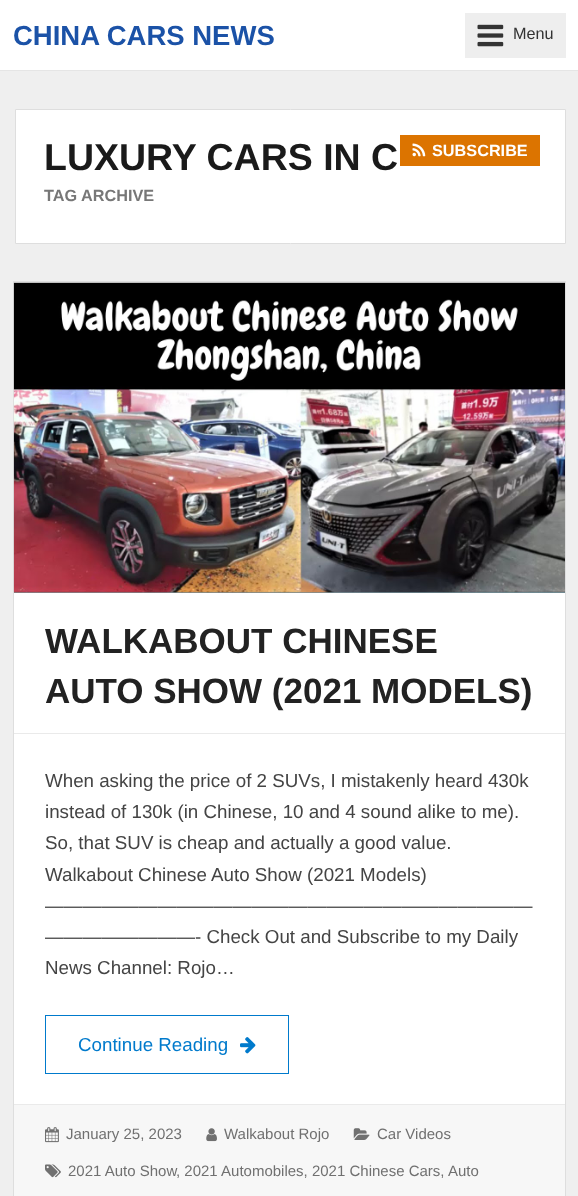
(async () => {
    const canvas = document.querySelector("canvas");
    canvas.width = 578;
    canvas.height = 1196;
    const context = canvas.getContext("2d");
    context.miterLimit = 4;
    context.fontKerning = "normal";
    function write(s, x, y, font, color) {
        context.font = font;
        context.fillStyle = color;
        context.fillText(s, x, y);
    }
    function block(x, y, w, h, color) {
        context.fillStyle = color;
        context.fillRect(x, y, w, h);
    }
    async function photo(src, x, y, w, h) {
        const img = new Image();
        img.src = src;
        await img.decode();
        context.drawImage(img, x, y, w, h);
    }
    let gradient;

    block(0, 0, 578, 1196, "rgb(239, 239, 239)");
    block(0, 0, 578, 70, "rgb(255, 255, 255)");
    block(0, 70, 578, 1, "rgb(229, 229, 229)");
    write("CHINA CARS NEWS", 13, 45, "bold 27.5px Liberation Sans", "rgb(27, 82, 167)");
    block(465, 13, 101, 45, "rgb(238, 238, 238)");
    await photo("media/1.png", 477, 24, 27, 23);
    write("Menu", 513, 39, "16.25px Liberation Sans", "rgb(51, 51, 51)");
    context.fillStyle = "rgb(255, 255, 255)";
    context.beginPath();
    context.rect(15.5, 109.5, 550, 134);
    context.fill();
    context.strokeStyle = "rgb(222, 222, 222)";
    context.stroke();
    write("LUXURY CARS IN C", 44, 170, "bold 37.5px Liberation Sans", "rgb(26, 26, 26)");
    block(400, 135, 140, 31, "rgb(220, 116, 0)");
    await photo("media/2.png", 412, 143, 14, 14);
    write("SUBSCRIBE", 432, 156, "bold 16.25px Liberation Sans", "rgb(255, 255, 255)");
    write("TAG ARCHIVE", 44, 201, "bold 16.25px Liberation Sans", "rgb(119, 119, 119)");
    block(14, 282, 551, 822, "rgb(255, 255, 255)");
    context.strokeRect(13.5, 281.5, 552, 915);
    gradient = context.createLinearGradient(74, 222, 505, 653);
    gradient.addColorStop(0, "rgb(142, 132, 133)");
    gradient.addColorStop(1, "rgb(112, 146, 156)");
    context.fillStyle = gradient;
    context.fillRect(14, 592, 551, 1);
    await photo("media/3.png", 13, 282, 552, 311);
    block(14, 733, 551, 1, "rgb(234, 234, 234)");
    write("WALKABOUT CHINESE", 45, 653, "bold 35px Liberation Sans", "rgb(34, 34, 34)");
    write("AUTO SHOW (2021 MODELS)", 45, 703, "bold 35px Liberation Sans", "rgb(34, 34, 34)");
    write("When asking the price of 2 SUVs, I mistakenly heard 430k", 45, 787, "18.75px Liberation Sans", "rgb(68, 68, 68)");
    write("instead of 130k (in Chinese, 10 and 4 sound alike to me).", 45, 818, "18.75px Liberation Sans", "rgb(68, 68, 68)");
    write("So, that SUV is cheap and actually a good value.", 45, 849, "18.75px Liberation Sans", "rgb(68, 68, 68)");
    write("Walkabout Chinese Auto Show (2021 Models)", 45, 881, "18.75px Liberation Sans", "rgb(68, 68, 68)");
    write("——————————————————————————", 45, 912, "18.75px Liberation Sans", "rgb(68, 68, 68)");
    write("————————- Check Out and Subscribe to my Daily", 45, 943, "18.75px Liberation Sans", "rgb(68, 68, 68)");
    write("News Channel: Rojo…", 45, 974, "18.75px Liberation Sans", "rgb(68, 68, 68)");
    context.strokeStyle = "rgb(0, 122, 204)";
    context.strokeRect(45.5, 1015.5, 243, 58);
    write("Continue Reading", 78, 1051, "18.75px Liberation Sans", "rgb(0, 122, 204)");
    await photo("media/4.png", 240, 1037, 16, 17);
    block(14, 1105, 551, 91, "rgb(247, 247, 247)");
    block(14, 1104, 551, 1, "rgb(234, 234, 234)");
    await photo("media/5.png", 45, 1127, 14, 16);
    write("January 25, 2023", 66, 1139, "15px Liberation Sans", "rgb(112, 112, 112)");
    await photo("media/6.png", 206, 1128, 11, 14);
    write("Walkabout Rojo", 224, 1139, "15px Liberation Sans", "rgb(112, 112, 112)");
    await photo("media/7.png", 353, 1128, 17, 12);
    write("Car Videos", 377, 1139, "15px Liberation Sans", "rgb(112, 112, 112)");
    await photo("media/8.png", 45, 1164, 16, 14);
    write("2021 Auto Show", 68, 1176, "15px Liberation Sans", "rgb(112, 112, 112)");
    write(", 2021 Automobiles, 2021 Chinese Cars,", 176, 1176, "15px Liberation Sans", "rgb(112, 112, 112)");
    write("Auto", 448, 1176, "15px Liberation Sans", "rgb(112, 112, 112)");
})();
